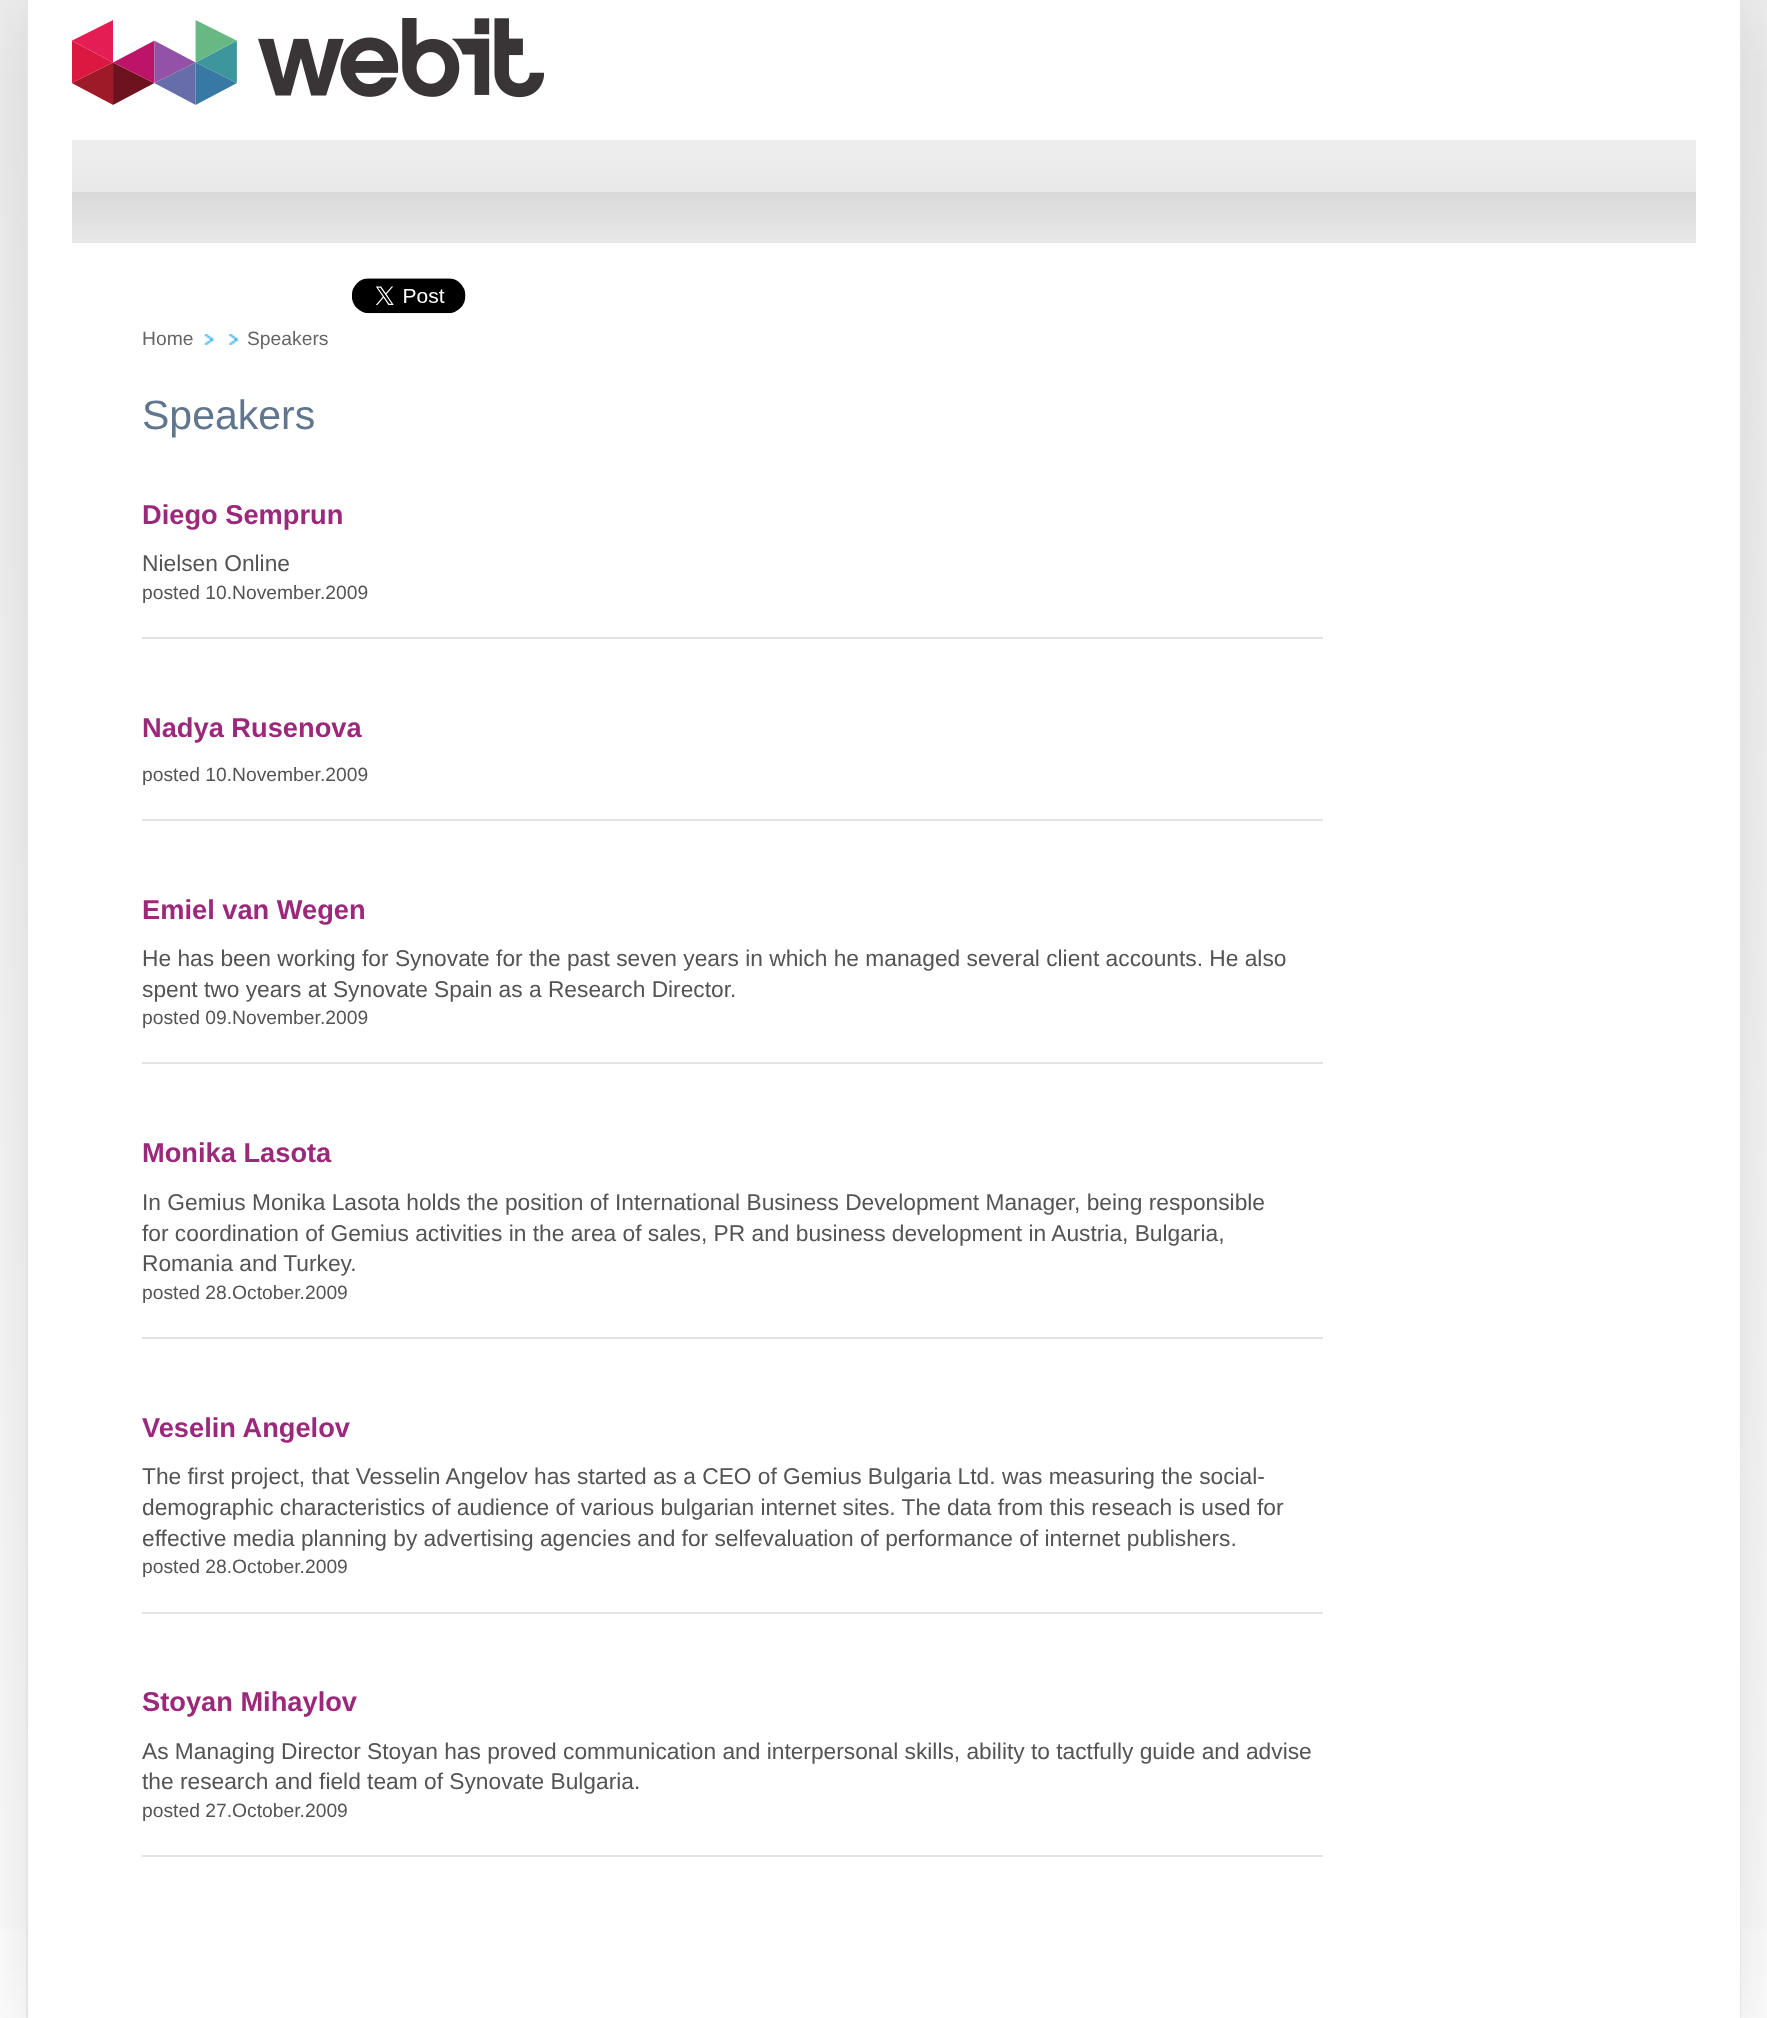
(async () => {
    const canvas = document.querySelector("canvas");
    canvas.width = 1767;
    canvas.height = 2018;
    const context = canvas.getContext("2d");
    context.miterLimit = 4;
    context.fontKerning = "normal";
    function write(s, x, y, font, color) {
        context.font = font;
        context.fillStyle = color;
        context.fillText(s, x, y);
    }
    function block(x, y, w, h, color) {
        context.fillStyle = color;
        context.fillRect(x, y, w, h);
    }
    async function photo(src, x, y, w, h) {
        const img = new Image();
        img.src = src;
        await img.decode();
        context.drawImage(img, x, y, w, h);
    }
    let gradient;

    block(0, 0, 1767, 2018, "rgb(255, 255, 255)");
    gradient = context.createLinearGradient(884, 0, 884, 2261);
    gradient.addColorStop(0, "rgb(238, 238, 238)");
    gradient.addColorStop(1, "rgb(255, 255, 255)");
    context.fillStyle = gradient;
    context.fillRect(0, 0, 1767, 1929);
    context.fillStyle = "rgba(50, 50, 50, 0.15)";
    context.filter = "blur(39.5px)";
    context.beginPath();
    context.roundRect(28, 2, 1715, 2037, 18);
    context.fill();
    context.filter = "none";
    block(28, 0, 1712, 2018, "rgb(255, 255, 255)");
    context.fillStyle = "rgb(228, 228, 228)";
    context.beginPath();
    context.moveTo(26, 0);
    context.lineTo(1741, 0);
    context.lineTo(1741, 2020);
    context.bezierCurveTo(1741, 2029, 1733, 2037, 1724, 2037);
    context.lineTo(44, 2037);
    context.bezierCurveTo(34, 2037, 26, 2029, 26, 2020);
    context.closePath();
    context.moveTo(28, 0);
    context.lineTo(1740, 0);
    context.lineTo(1740, 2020);
    context.bezierCurveTo(1740, 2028, 1732, 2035, 1724, 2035);
    context.lineTo(44, 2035);
    context.bezierCurveTo(35, 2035, 28, 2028, 28, 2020);
    context.closePath();
    context.fill("evenodd");
    await photo("media/1.png", 72, 18, 472, 87);
    gradient = context.createLinearGradient(884, 140, 884, 243);
    gradient.addColorStop(0.01, "rgb(238, 238, 238)");
    gradient.addColorStop(0.5, "rgb(233, 233, 233)");
    gradient.addColorStop(0.5, "rgb(217, 217, 217)");
    gradient.addColorStop(1, "rgb(232, 232, 232)");
    context.fillStyle = gradient;
    context.fillRect(72, 140, 1624, 103);
    await photo("media/2.png", 352, 278, 114, 36);
    write("Home", 142, 345, "19.3px Liberation Sans", "rgb(102, 102, 102)");
    await photo("media/3.png", 204, 334, 10, 11);
    await photo("media/4.png", 228, 334, 11, 11);
    write("Speakers", 247, 345, "19.3px Liberation Sans", "rgb(102, 102, 102)");
    write("Speakers", 142, 429, "41px Liberation Sans", "rgb(96, 117, 142)");
    write("Diego Semprun", 142, 524, "bold 27.25px Liberation Sans", "rgb(156, 40, 123)");
    write("Nielsen Online", 142, 571, "22.75px Liberation Sans", "rgb(84, 84, 84)");
    write("posted 10.November.2009", 142, 599, "19.3px Liberation Sans", "rgb(84, 84, 84)");
    block(142, 637, 1181, 2, "rgb(227, 227, 227)");
    write("Nadya Rusenova", 142, 737, "bold 27.25px Liberation Sans", "rgb(156, 40, 123)");
    write("posted 10.November.2009", 142, 781, "19.3px Liberation Sans", "rgb(84, 84, 84)");
    block(142, 819, 1181, 2, "rgb(227, 227, 227)");
    write("Emiel van Wegen", 142, 919, "bold 27.25px Liberation Sans", "rgb(156, 40, 123)");
    write("He has been working for Synovate for the past seven years in which he managed several client accounts. He also", 142, 966, "22.75px Liberation Sans", "rgb(84, 84, 84)");
    write("spent two years at Synovate Spain as a Research Director.", 142, 997, "22.75px Liberation Sans", "rgb(84, 84, 84)");
    write("posted 09.November.2009", 142, 1024, "19.3px Liberation Sans", "rgb(84, 84, 84)");
    block(142, 1062, 1181, 2, "rgb(227, 227, 227)");
    write("Monika Lasota", 142, 1162, "bold 27.25px Liberation Sans", "rgb(156, 40, 123)");
    write("In Gemius Monika Lasota holds the position of International Business Development Manager, being responsible", 142, 1210, "22.75px Liberation Sans", "rgb(84, 84, 84)");
    write("for coordination of Gemius activities in the area of sales, PR and business development in Austria, Bulgaria,", 142, 1241, "22.75px Liberation Sans", "rgb(84, 84, 84)");
    write("Romania and Turkey.", 142, 1271, "22.75px Liberation Sans", "rgb(84, 84, 84)");
    write("posted 28.October.2009", 142, 1299, "19.3px Liberation Sans", "rgb(84, 84, 84)");
    block(142, 1337, 1181, 2, "rgb(227, 227, 227)");
    write("Veselin Angelov", 142, 1437, "bold 27.25px Liberation Sans", "rgb(156, 40, 123)");
    write("The first project, that Vesselin Angelov has started as a CEO of Gemius Bulgaria Ltd. was measuring the social-", 142, 1484, "22.75px Liberation Sans", "rgb(84, 84, 84)");
    write("demographic characteristics of audience of various bulgarian internet sites. The data from this reseach is used for", 142, 1515, "22.75px Liberation Sans", "rgb(84, 84, 84)");
    write("effective media planning by advertising agencies and for selfevaluation of performance of internet publishers.", 142, 1546, "22.75px Liberation Sans", "rgb(84, 84, 84)");
    write("posted 28.October.2009", 142, 1573, "19.3px Liberation Sans", "rgb(84, 84, 84)");
    block(142, 1612, 1181, 2, "rgb(227, 227, 227)");
    write("Stoyan Mihaylov", 142, 1711, "bold 27.25px Liberation Sans", "rgb(156, 40, 123)");
    write("As Managing Director Stoyan has proved communication and interpersonal skills, ability to tactfully guide and advise", 142, 1759, "22.75px Liberation Sans", "rgb(84, 84, 84)");
    write("the research and field team of Synovate Bulgaria.", 142, 1789, "22.75px Liberation Sans", "rgb(84, 84, 84)");
    write("posted 27.October.2009", 142, 1817, "19.3px Liberation Sans", "rgb(84, 84, 84)");
    block(142, 1855, 1181, 2, "rgb(227, 227, 227)");
})();
